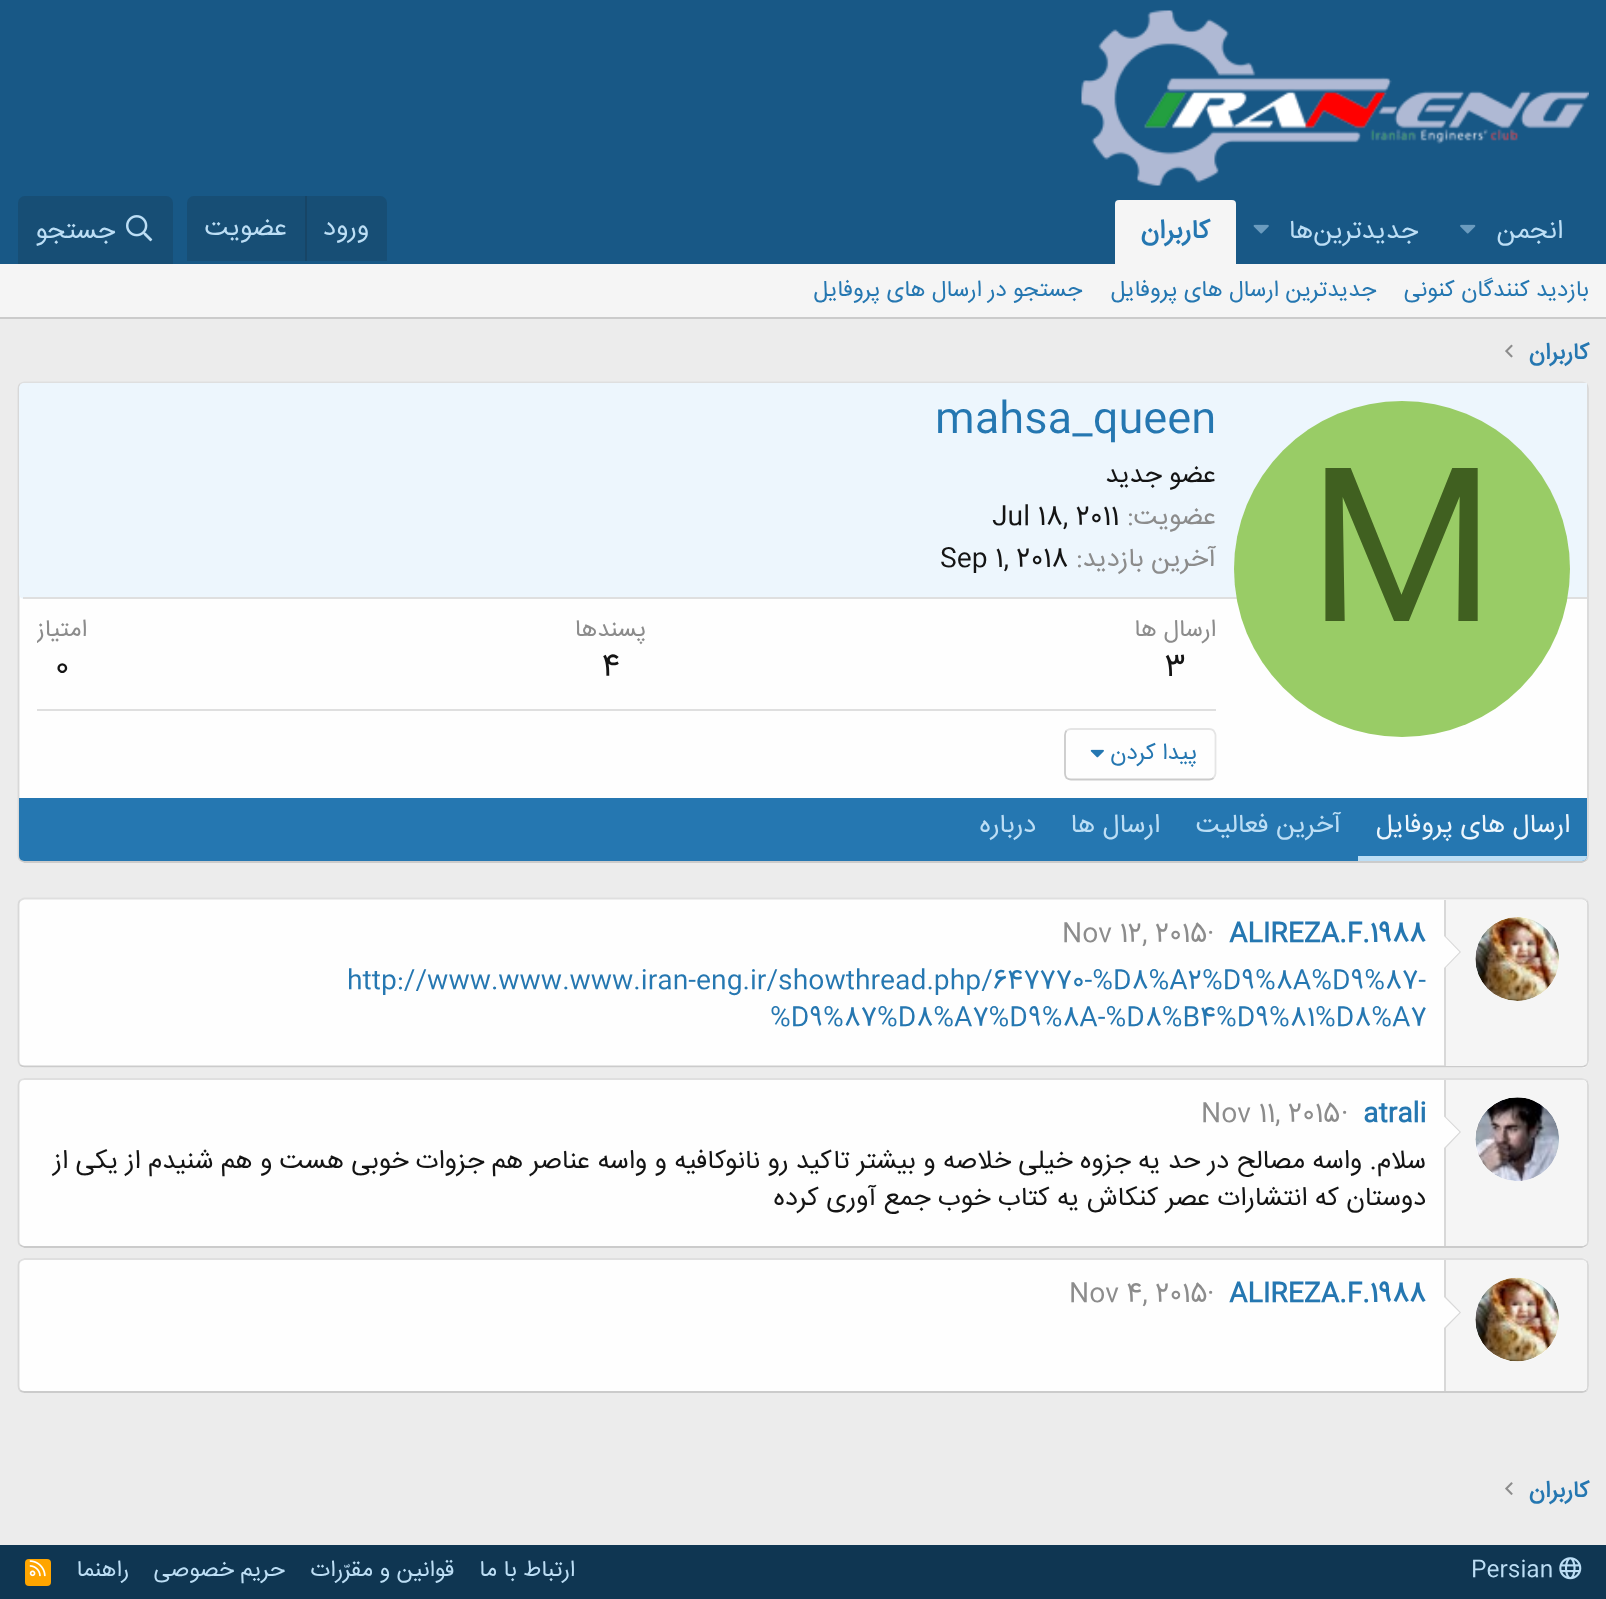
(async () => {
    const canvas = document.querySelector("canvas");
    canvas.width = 1606;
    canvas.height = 1599;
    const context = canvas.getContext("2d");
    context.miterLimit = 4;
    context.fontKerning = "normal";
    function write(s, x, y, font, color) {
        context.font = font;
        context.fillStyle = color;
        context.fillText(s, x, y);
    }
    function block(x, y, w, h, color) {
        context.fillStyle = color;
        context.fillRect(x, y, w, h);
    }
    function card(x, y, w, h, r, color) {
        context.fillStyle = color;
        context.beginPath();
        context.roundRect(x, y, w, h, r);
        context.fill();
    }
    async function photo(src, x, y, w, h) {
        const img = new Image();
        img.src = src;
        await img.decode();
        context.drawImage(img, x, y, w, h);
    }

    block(0, 0, 1606, 1599, "rgb(236, 236, 236)");
    block(0, 0, 1606, 264, "rgb(24, 88, 134)");
    await photo("media/1.png", 1081, 10, 508, 176);
    context.direction = "rtl";
    write("انجمن", 1563, 238, "26.25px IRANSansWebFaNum", "rgb(188, 222, 245)");
    await photo("media/2.png", 1460, 224, 16, 10);
    write("جدیدترین‌ها", 1418, 238, "26.25px IRANSansWebFaNum", "rgb(188, 222, 245)");
    await photo("media/3.png", 1253, 224, 16, 10);
    context.fillStyle = "rgb(245, 245, 245)";
    context.beginPath();
    context.roundRect(1115, 200, 121, 64, [4, 4, 0, 0]);
    context.fill();
    write("کاربران", 1210, 238, "bold 26.25px IRANSansWebFaNum", "rgb(37, 119, 177)");
    context.fillStyle = "rgb(23, 78, 117)";
    context.beginPath();
    context.roundRect(187, 196, 200, 65, [7, 7, 0, 0]);
    context.fill();
    write("ورود", 369, 235, "26.25px IRANSansWebFaNum", "rgb(188, 222, 245)");
    block(305, 196, 2, 65, "rgb(23, 69, 102)");
    write("عضویت", 287, 235, "26.25px IRANSansWebFaNum", "rgb(188, 222, 245)");
    context.fillStyle = "rgb(23, 78, 117)";
    context.beginPath();
    context.roundRect(18, 196, 155, 68, [7, 7, 0, 0]);
    context.fill();
    await photo("media/4.png", 126, 215, 27, 27);
    write("جستجو", 115, 238, "26.25px IRANSansWebFaNum", "rgb(188, 222, 245)");
    block(0, 264, 1606, 53, "rgb(245, 245, 245)");
    block(0, 317, 1606, 2, "rgb(203, 203, 203)");
    write("بازدید کنندگان کنونی", 1589, 296, "22.75px IRANSansWebFaNum", "rgb(37, 119, 177)");
    write("جدیدترین ارسال های پروفایل", 1376, 296, "22.75px IRANSansWebFaNum", "rgb(37, 119, 177)");
    write("جستجو در ارسال های پروفایل", 1082, 296, "22.75px IRANSansWebFaNum", "rgb(37, 119, 177)");
    write("کاربران", 1589, 359, "bold 22.75px IRANSansWebFaNum", "rgb(37, 119, 177)");
    await photo("media/5.png", 1505, 344, 8, 14);
    card(18, 382, 1571, 481, 7, "rgb(254, 254, 254)");
    context.beginPath();
    context.moveTo(20, 384);
    context.bezierCurveTo(21.5, 383, 23, 382.5, 24.5, 382.5);
    context.lineTo(1582, 382.5);
    context.bezierCurveTo(1583.5, 382.5, 1585, 383, 1586.5, 384);
    context.strokeStyle = "rgb(223, 223, 223)";
    context.lineWidth = 1.8;
    context.stroke();
    context.beginPath();
    context.moveTo(1586.5, 384);
    context.bezierCurveTo(1587.5, 385.5, 1588, 387, 1588, 388.5);
    context.lineTo(1588, 856);
    context.bezierCurveTo(1588, 857.5, 1587.5, 859, 1586.5, 860);
    context.strokeStyle = "rgb(216, 216, 216)";
    context.stroke();
    context.beginPath();
    context.moveTo(1586.5, 860);
    context.bezierCurveTo(1585, 861, 1583.5, 862, 1582, 862);
    context.lineTo(24.5, 862);
    context.bezierCurveTo(23, 862, 21.5, 861, 20, 860);
    context.strokeStyle = "rgb(203, 203, 203)";
    context.stroke();
    context.beginPath();
    context.moveTo(20, 860);
    context.bezierCurveTo(19, 859, 18.5, 857.5, 18.5, 856);
    context.lineTo(18.5, 388.5);
    context.bezierCurveTo(18.5, 387, 19, 385.5, 20, 384);
    context.strokeStyle = "rgb(216, 216, 216)";
    context.stroke();
    context.fillStyle = "rgb(237, 246, 253)";
    context.beginPath();
    context.roundRect(19, 383, 1568, 216, [5, 0, 0, 5]);
    context.fill();
    block(23, 597, 1564, 2, "rgb(223, 223, 223)");
    context.fillStyle = "rgb(153, 204, 102)";
    context.beginPath();
    context.arc(1402, 569, 168, 0, Math.PI * 2);
    context.fill();
    context.direction = "ltr";
    write("M", 1307, 611, "201px IRANSansWebFaNum", "rgb(64, 96, 32)");
    write("mahsa_queen", 935, 431, "42px IRANSansWebFaNum", "rgb(37, 119, 177)");
    context.direction = "rtl";
    write("عضو جدید", 1216, 482, "26.25px IRANSansWebFaNum", "rgb(20, 20, 20)");
    write("عضویت", 1216, 524, "26.25px IRANSansWebFaNum", "rgb(140, 140, 140)");
    context.direction = "ltr";
    write(":", 1127, 524, "26.25px IRANSansWebFaNum", "rgb(140, 140, 140)");
    write("Jul 18, 2011", 992, 524, "26.25px IRANSansWebFaNum", "rgb(20, 20, 20)");
    context.direction = "rtl";
    write("آخرین بازدید", 1216, 566, "26.25px IRANSansWebFaNum", "rgb(140, 140, 140)");
    context.direction = "ltr";
    write(":", 1076, 566, "26.25px IRANSansWebFaNum", "rgb(140, 140, 140)");
    write("Sep 1, 2018", 940, 566, "26.25px IRANSansWebFaNum", "rgb(20, 20, 20)");
    context.direction = "rtl";
    write("ارسال ها", 1216, 636, "24px IRANSansWebFaNum", "rgb(140, 140, 140)");
    context.direction = "ltr";
    write("3", 1165, 675, "30px IRANSansWebFaNum", "rgb(20, 20, 20)");
    context.direction = "rtl";
    write("پسندها", 646, 636, "24px IRANSansWebFaNum", "rgb(140, 140, 140)");
    context.direction = "ltr";
    write("4", 602, 675, "30px IRANSansWebFaNum", "rgb(20, 20, 20)");
    context.save();
    context.beginPath();
    context.rect(37, 616, 49, 75);
    context.clip();
    context.direction = "rtl";
    write("امتیاز", 87, 636, "24px IRANSansWebFaNum", "rgb(140, 140, 140)");
    context.restore();
    write("0", 55, 675, "30px IRANSansWebFaNum", "rgb(20, 20, 20)");
    block(37, 709, 1179, 2, "rgb(223, 223, 223)");
    context.beginPath();
    context.moveTo(1066.5, 730.5);
    context.bezierCurveTo(1068, 729.5, 1069.5, 729, 1071, 729);
    context.lineTo(1209, 729);
    context.bezierCurveTo(1211, 729, 1212.5, 729.5, 1213.5, 730.5);
    context.bezierCurveTo(1214.5, 732, 1215.5, 733.5, 1215.5, 735);
    context.lineTo(1215.5, 773.5);
    context.bezierCurveTo(1215.5, 775, 1214.5, 776.5, 1213.5, 778);
    context.strokeStyle = "rgb(229, 229, 229)";
    context.stroke();
    context.beginPath();
    context.moveTo(1213.5, 778);
    context.bezierCurveTo(1212.5, 779, 1211, 779.5, 1209, 779.5);
    context.lineTo(1071, 779.5);
    context.bezierCurveTo(1069.5, 779.5, 1068, 779, 1066.5, 778);
    context.bezierCurveTo(1065.5, 776.5, 1065, 775, 1065, 773.5);
    context.lineTo(1065, 735);
    context.bezierCurveTo(1065, 733.5, 1065.5, 732, 1066.5, 730.5);
    context.strokeStyle = "rgb(203, 203, 203)";
    context.stroke();
    context.direction = "rtl";
    write("پیدا کردن", 1197, 759, "22.75px IRANSansWebFaNum", "rgb(37, 119, 177)");
    await photo("media/6.png", 1090, 749, 14, 9);
    context.beginPath();
    context.roundRect(19, 798, 1568, 63, [0, 0, 5, 5]);
    context.fill();
    context.fillStyle = "rgb(188, 222, 245)";
    context.beginPath();
    context.roundRect(1358, 856, 229, 5, [0, 0, 5, 0]);
    context.fill();
    write("ارسال های پروفایل", 1570, 832, "26.25px IRANSansWebFaNum", "rgb(237, 246, 253)");
    write("آخرین فعالیت", 1341, 832, "26.25px IRANSansWebFaNum", "rgb(188, 222, 245)");
    write("ارسال ها", 1160, 832, "26.25px IRANSansWebFaNum", "rgb(188, 222, 245)");
    write("درباره", 1036, 832, "26.25px IRANSansWebFaNum", "rgb(188, 222, 245)");
    card(18, 898, 1571, 170, 7, "rgb(254, 254, 254)");
    context.beginPath();
    context.moveTo(20, 900.5);
    context.bezierCurveTo(21.5, 899.5, 23, 898.5, 24.5, 898.5);
    context.lineTo(1582, 898.5);
    context.bezierCurveTo(1583.5, 898.5, 1585, 899.5, 1586.5, 900.5);
    context.strokeStyle = "rgb(223, 223, 223)";
    context.stroke();
    context.beginPath();
    context.moveTo(1586.5, 900.5);
    context.bezierCurveTo(1587.5, 901.5, 1588, 903, 1588, 905);
    context.lineTo(1588, 1060.5);
    context.bezierCurveTo(1588, 1062, 1587.5, 1063.5, 1586.5, 1065);
    context.strokeStyle = "rgb(216, 216, 216)";
    context.stroke();
    context.beginPath();
    context.moveTo(1586.5, 1065);
    context.bezierCurveTo(1585, 1066, 1583.5, 1066.5, 1582, 1066.5);
    context.lineTo(24.5, 1066.5);
    context.bezierCurveTo(23, 1066.5, 21.5, 1066, 20, 1065);
    context.strokeStyle = "rgb(203, 203, 203)";
    context.stroke();
    context.beginPath();
    context.moveTo(20, 1065);
    context.bezierCurveTo(19, 1063.5, 18.5, 1062, 18.5, 1060.5);
    context.lineTo(18.5, 905);
    context.bezierCurveTo(18.5, 903, 19, 901.5, 20, 900.5);
    context.strokeStyle = "rgb(216, 216, 216)";
    context.stroke();
    context.fillStyle = "rgb(245, 245, 245)";
    context.beginPath();
    context.roundRect(1444, 900, 143, 166, [0, 5, 5, 0]);
    context.fill();
    block(1444, 900, 2, 166, "rgb(216, 216, 216)");
    context.fillStyle = "rgb(254, 254, 254)";
    context.beginPath();
    context.arc(1517, 959, 42, 0, Math.PI * 2);
    context.fill();
    await photo("media/7.png", 1475, 917, 84, 84);
    context.fillStyle = "rgb(216, 216, 216)";
    context.beginPath();
    context.moveTo(1444, 969.5);
    context.lineTo(1444, 934.5);
    context.lineTo(1461, 952);
    context.closePath();
    context.fill();
    context.fillStyle = "rgb(254, 254, 254)";
    context.beginPath();
    context.moveTo(1444, 968);
    context.lineTo(1444, 936);
    context.lineTo(1459.5, 952);
    context.closePath();
    context.fill();
    context.direction = "ltr";
    write("ALIREZA.F.1988", 1229, 941, "bold 26.25px IRANSansWebFaNum", "rgb(37, 119, 177)");
    write("·", 1207, 941, "26.25px IRANSansWebFaNum", "rgb(140, 140, 140)");
    write("Nov 12, 2015", 1062, 941, "26.25px IRANSansWebFaNum", "rgb(140, 140, 140)");
    write("http://www.www.www.iran-eng.ir/showthread.php/647770-%D8%A2%D9%8A%D9%87-", 347, 988, "26.25px IRANSansWebFaNum", "rgb(37, 119, 177)");
    write("%D9%87%D8%A7%D9%8A-%D8%B4%D9%81%D8%A7", 770, 1025, "26.25px IRANSansWebFaNum", "rgb(37, 119, 177)");
    card(18, 1078, 1571, 170, 7, "rgb(254, 254, 254)");
    context.beginPath();
    context.moveTo(20, 1080.5);
    context.bezierCurveTo(21.5, 1079.5, 23, 1079, 24.5, 1079);
    context.lineTo(1582, 1079);
    context.bezierCurveTo(1583.5, 1079, 1585, 1079.5, 1586.5, 1080.5);
    context.strokeStyle = "rgb(223, 223, 223)";
    context.stroke();
    context.beginPath();
    context.moveTo(1586.5, 1080.5);
    context.bezierCurveTo(1587.5, 1082, 1588, 1083.5, 1588, 1085);
    context.lineTo(1588, 1241);
    context.bezierCurveTo(1588, 1242.5, 1587.5, 1244, 1586.5, 1245);
    context.strokeStyle = "rgb(216, 216, 216)";
    context.stroke();
    context.beginPath();
    context.moveTo(1586.5, 1245);
    context.bezierCurveTo(1585, 1246, 1583.5, 1247, 1582, 1247);
    context.lineTo(24.5, 1247);
    context.bezierCurveTo(23, 1247, 21.5, 1246, 20, 1245);
    context.strokeStyle = "rgb(203, 203, 203)";
    context.stroke();
    context.beginPath();
    context.moveTo(20, 1245);
    context.bezierCurveTo(19, 1244, 18.5, 1242.5, 18.5, 1241);
    context.lineTo(18.5, 1085);
    context.bezierCurveTo(18.5, 1083.5, 19, 1082, 20, 1080.5);
    context.strokeStyle = "rgb(216, 216, 216)";
    context.stroke();
    context.fillStyle = "rgb(245, 245, 245)";
    context.beginPath();
    context.roundRect(1444, 1080, 143, 166, [0, 5, 5, 0]);
    context.fill();
    block(1444, 1080, 2, 166, "rgb(216, 216, 216)");
    context.fillStyle = "rgb(254, 254, 254)";
    context.beginPath();
    context.arc(1517, 1139, 42, 0, Math.PI * 2);
    context.fill();
    await photo("media/8.png", 1475, 1097, 84, 84);
    context.fillStyle = "rgb(216, 216, 216)";
    context.beginPath();
    context.moveTo(1444, 1150);
    context.lineTo(1444, 1115);
    context.lineTo(1461, 1132);
    context.closePath();
    context.fill();
    context.fillStyle = "rgb(254, 254, 254)";
    context.beginPath();
    context.moveTo(1444, 1148);
    context.lineTo(1444, 1116.5);
    context.lineTo(1459.5, 1132);
    context.closePath();
    context.fill();
    write("atrali", 1363, 1121, "bold 26.25px IRANSansWebFaNum", "rgb(37, 119, 177)");
    write("·", 1341, 1121, "26.25px IRANSansWebFaNum", "rgb(140, 140, 140)");
    write("Nov 11, 2015", 1201, 1121, "26.25px IRANSansWebFaNum", "rgb(140, 140, 140)");
    context.direction = "rtl";
    write("سلام. واسه مصالح در حد یه جزوه خیلی خلاصه و بیشتر تاکید رو نانوکافیه و واسه عناصر هم جزوات خوبی هست و هم شنیدم از یکی از", 1426, 1168, "26.25px IRANSansWebFaNum", "rgb(20, 20, 20)");
    write("دوستان که انتشارات عصر کنکاش یه کتاب خوب جمع آوری کرده", 1426, 1205, "26.25px IRANSansWebFaNum", "rgb(20, 20, 20)");
    card(18, 1258, 1571, 135, 7, "rgb(254, 254, 254)");
    context.beginPath();
    context.moveTo(20, 1261);
    context.bezierCurveTo(21.5, 1260, 23, 1259, 24.5, 1259);
    context.lineTo(1582, 1259);
    context.bezierCurveTo(1583.5, 1259, 1585, 1260, 1586.5, 1261);
    context.strokeStyle = "rgb(223, 223, 223)";
    context.stroke();
    context.beginPath();
    context.moveTo(1586.5, 1261);
    context.bezierCurveTo(1587.5, 1262, 1588, 1263.5, 1588, 1265);
    context.lineTo(1588, 1386);
    context.bezierCurveTo(1588, 1387.5, 1587.5, 1389, 1586.5, 1390.5);
    context.strokeStyle = "rgb(216, 216, 216)";
    context.stroke();
    context.beginPath();
    context.moveTo(1586.5, 1390.5);
    context.bezierCurveTo(1585, 1391.5, 1583.5, 1392, 1582, 1392);
    context.lineTo(24.5, 1392);
    context.bezierCurveTo(23, 1392, 21.5, 1391.5, 20, 1390.5);
    context.strokeStyle = "rgb(203, 203, 203)";
    context.stroke();
    context.beginPath();
    context.moveTo(20, 1390.5);
    context.bezierCurveTo(19, 1389, 18.5, 1387.5, 18.5, 1386);
    context.lineTo(18.5, 1265);
    context.bezierCurveTo(18.5, 1263.5, 19, 1262, 20, 1261);
    context.strokeStyle = "rgb(216, 216, 216)";
    context.stroke();
    context.fillStyle = "rgb(245, 245, 245)";
    context.beginPath();
    context.roundRect(1444, 1260, 143, 131, [0, 5, 5, 0]);
    context.fill();
    block(1444, 1260, 2, 131, "rgb(216, 216, 216)");
    context.fillStyle = "rgb(254, 254, 254)";
    context.beginPath();
    context.arc(1517, 1320, 42, 0, Math.PI * 2);
    context.fill();
    await photo("media/9.png", 1475, 1277, 84, 85);
    context.fillStyle = "rgb(216, 216, 216)";
    context.beginPath();
    context.moveTo(1444, 1330);
    context.lineTo(1444, 1295);
    context.lineTo(1461, 1312.5);
    context.closePath();
    context.fill();
    context.fillStyle = "rgb(254, 254, 254)";
    context.beginPath();
    context.moveTo(1444, 1328);
    context.lineTo(1444, 1297);
    context.lineTo(1459.5, 1312.5);
    context.closePath();
    context.fill();
    context.direction = "ltr";
    write("ALIREZA.F.1988", 1229, 1301, "bold 26.25px IRANSansWebFaNum", "rgb(37, 119, 177)");
    write("·", 1207, 1301, "26.25px IRANSansWebFaNum", "rgb(140, 140, 140)");
    write("Nov 4, 2015", 1069, 1301, "26.25px IRANSansWebFaNum", "rgb(140, 140, 140)");
    context.direction = "rtl";
    write("کاربران", 1589, 1497, "bold 22.75px IRANSansWebFaNum", "rgb(37, 119, 177)");
    await photo("media/10.png", 1505, 1482, 8, 13);
    block(0, 1545, 1606, 54, "rgb(15, 54, 82)");
    await photo("media/11.png", 1559, 1557, 23, 23);
    context.direction = "ltr";
    write("Persian", 1471, 1576, "22.75px IRANSansWebFaNum", "rgb(188, 222, 245)");
    context.direction = "rtl";
    write("ارتباط با ما", 575, 1576, "22.75px IRANSansWebFaNum", "rgb(188, 222, 245)");
    write("قوانین و مقرّرات", 454, 1576, "22.75px IRANSansWebFaNum", "rgb(188, 222, 245)");
    write("حریم خصوصی", 285, 1576, "22.75px IRANSansWebFaNum", "rgb(188, 222, 245)");
    write("راهنما", 129, 1576, "22.75px IRANSansWebFaNum", "rgb(188, 222, 245)");
    card(25, 1559, 26, 27, 4, "rgb(255, 165, 0)");
    await photo("media/12.png", 29, 1560, 17, 17);
})();
